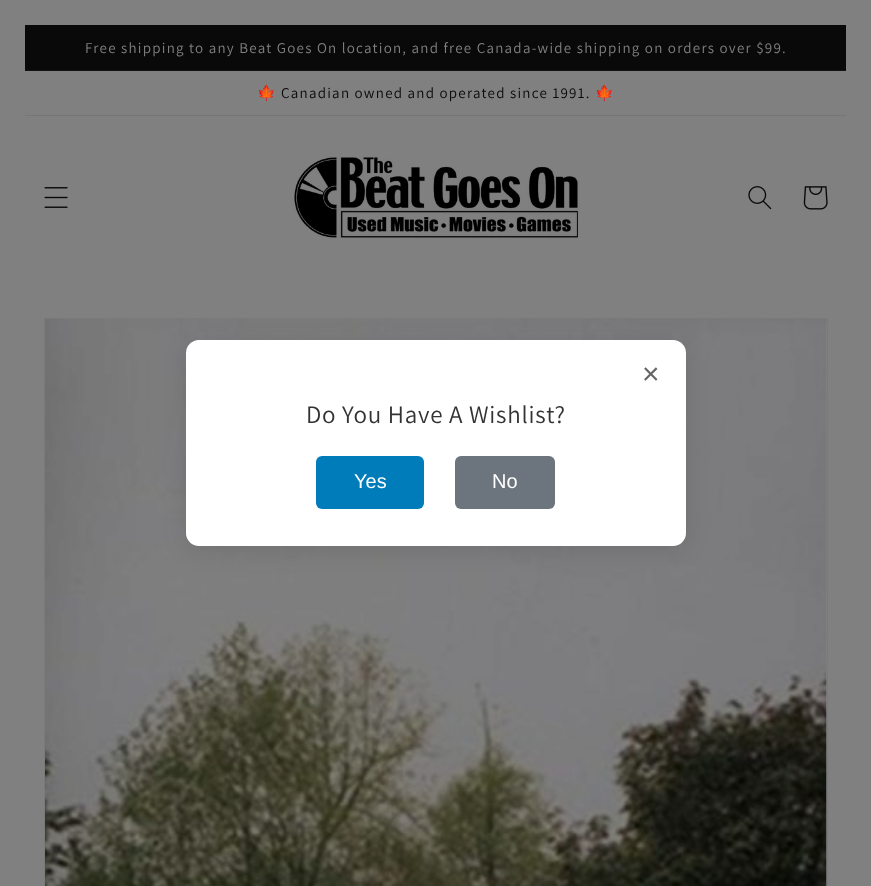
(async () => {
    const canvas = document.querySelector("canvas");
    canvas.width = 871;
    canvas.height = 886;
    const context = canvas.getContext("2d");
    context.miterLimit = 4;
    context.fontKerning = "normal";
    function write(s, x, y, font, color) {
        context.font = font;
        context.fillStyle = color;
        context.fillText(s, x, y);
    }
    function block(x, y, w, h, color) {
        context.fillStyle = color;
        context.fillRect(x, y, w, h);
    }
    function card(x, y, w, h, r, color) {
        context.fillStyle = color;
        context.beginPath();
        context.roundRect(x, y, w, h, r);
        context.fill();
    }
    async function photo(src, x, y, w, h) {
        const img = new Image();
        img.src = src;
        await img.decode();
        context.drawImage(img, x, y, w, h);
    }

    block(0, 0, 871, 886, "rgb(128, 128, 128)");
    block(25, 25, 821, 45, "rgb(9, 9, 9)");
    block(25, 70, 821, 1, "rgb(19, 19, 19)");
    context.letterSpacing = "1.25px";
    write("Free shipping to any Beat Goes On location, and free Canada-wide shipping on orders over $99.", 85, 53, "15px Assistant", "rgb(128, 128, 128)");
    block(25, 115, 821, 1, "rgb(118, 118, 118)");
    write("🍁", 257, 98, "15px Noto Color Emoji", "rgb(9, 9, 9)");
    write("Canadian owned and operated since 1991.", 281, 98, "15px Assistant", "rgb(9, 9, 9)");
    write("🍁", 595, 98, "15px Noto Color Emoji", "rgb(9, 9, 9)");
    await photo("media/1.png", 44, 187, 24, 21);
    await photo("media/2.png", 294, 156, 285, 83);
    await photo("media/3.png", 748, 186, 24, 24);
    await photo("media/4.png", 803, 186, 25, 24);
    context.strokeStyle = "rgb(122, 122, 122)";
    context.strokeRect(44.5, 318.5, 783, 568);
    await photo("media/5.png", 45, 318, 782, 568);
    context.fillStyle = "rgba(0, 0, 0, 0.1)";
    context.filter = "blur(12.5px)";
    context.beginPath();
    context.roundRect(186, 345, 500, 206, 13);
    context.fill();
    context.filter = "none";
    card(186, 340, 500, 206, 13, "rgb(255, 255, 255)");
    context.letterSpacing = "0.75px";
    write("×", 642, 384, "30px Liberation Sans", "rgb(102, 102, 102)");
    write("Do You Have A Wishlist?", 306, 423, "25px Assistant", "rgb(51, 51, 51)");
    card(316, 456, 108, 53, 6, "rgb(0, 124, 186)");
    context.letterSpacing = "0px";
    write("Yes", 354, 488, "20px Liberation Sans", "rgb(255, 255, 255)");
    card(455, 456, 100, 53, 6, "rgb(108, 117, 125)");
    write("No", 492, 488, "20px Liberation Sans", "rgb(255, 255, 255)");
})();
